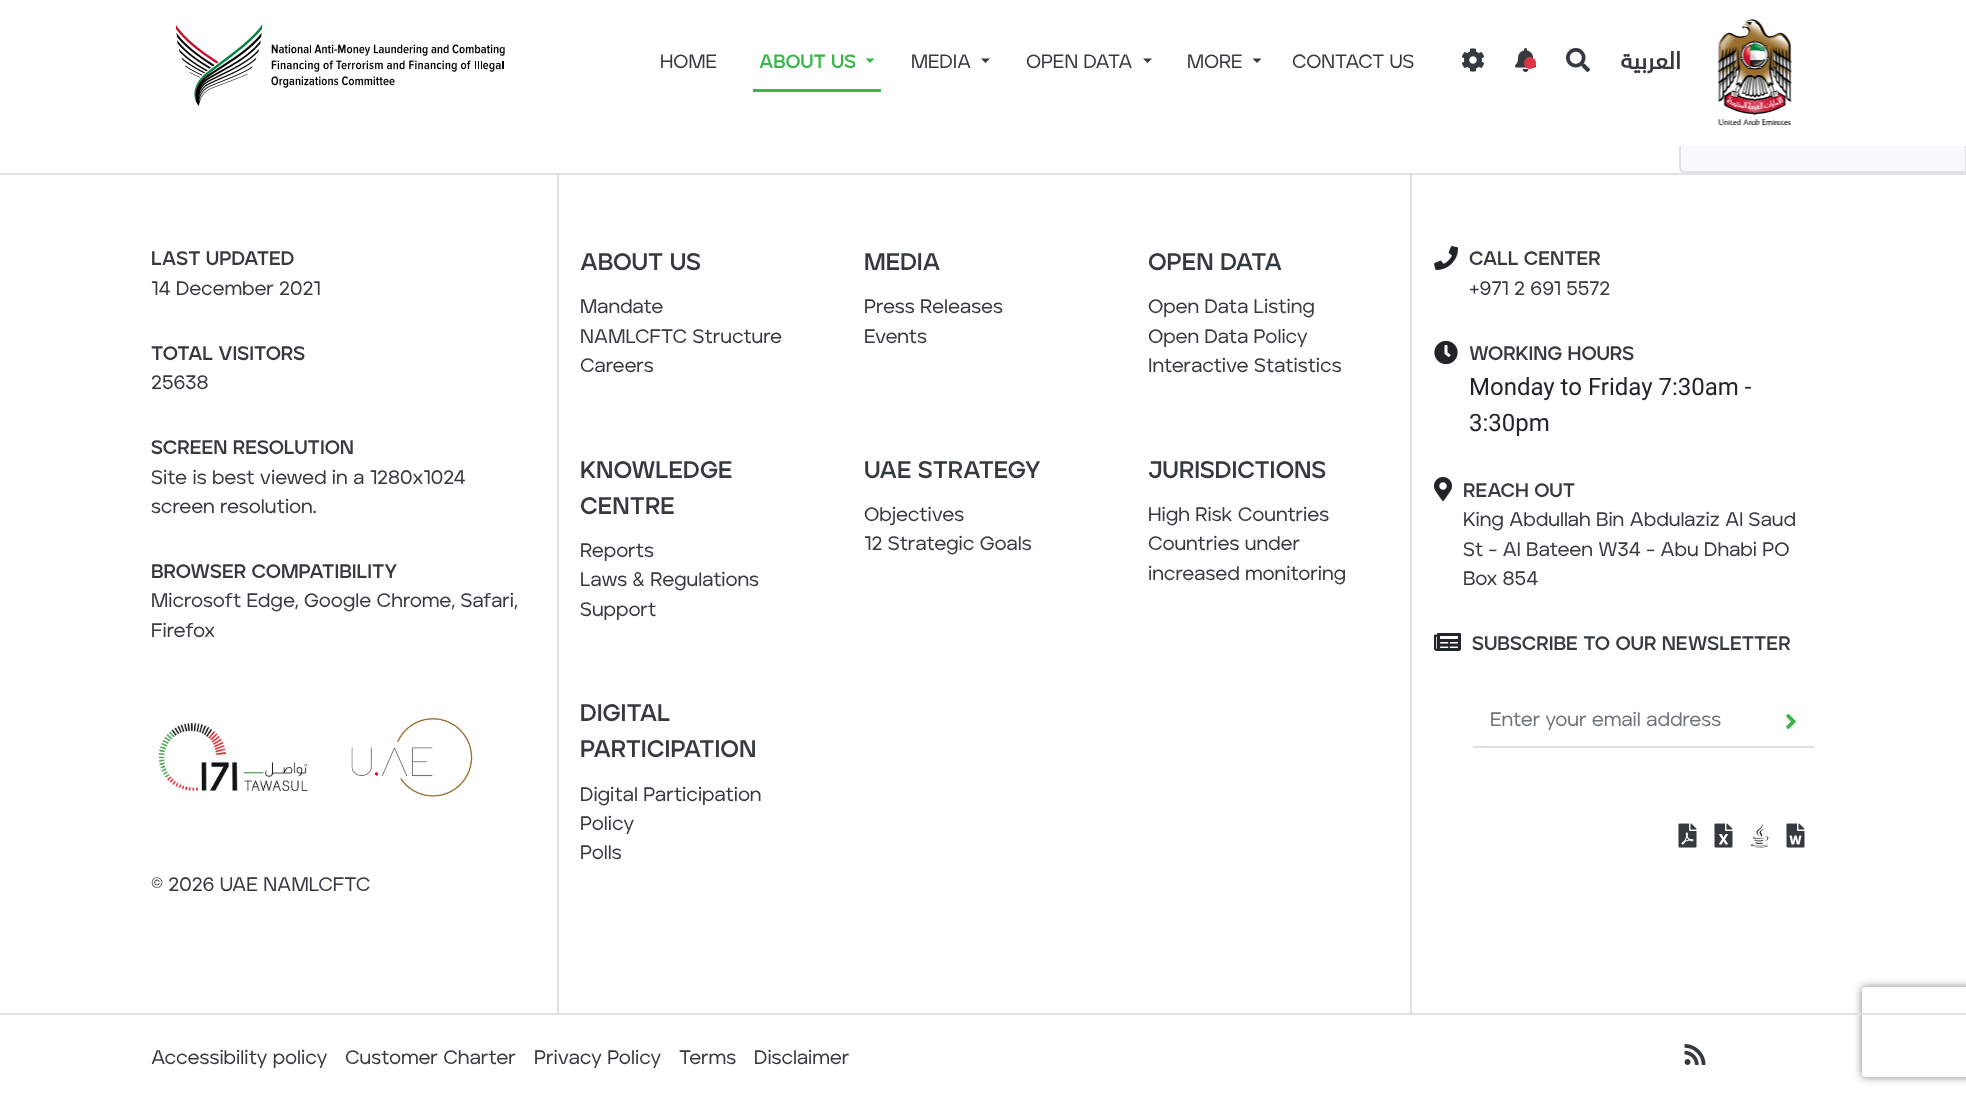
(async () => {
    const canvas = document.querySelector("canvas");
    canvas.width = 1966;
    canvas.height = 1097;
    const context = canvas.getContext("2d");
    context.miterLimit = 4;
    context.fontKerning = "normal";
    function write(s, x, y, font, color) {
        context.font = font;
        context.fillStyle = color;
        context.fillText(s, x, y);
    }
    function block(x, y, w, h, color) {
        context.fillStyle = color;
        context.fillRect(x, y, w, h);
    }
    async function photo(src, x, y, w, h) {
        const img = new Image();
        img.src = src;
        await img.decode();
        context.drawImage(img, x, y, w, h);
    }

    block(0, 0, 1966, 1097, "rgb(255, 255, 255)");
    context.fillStyle = "rgb(248, 249, 250)";
    context.beginPath();
    context.moveTo(1685, 111);
    context.lineTo(1966, 111);
    context.lineTo(1966, 172);
    context.lineTo(1685, 172);
    context.bezierCurveTo(1682, 172, 1680, 170, 1680, 167);
    context.lineTo(1680, 116);
    context.bezierCurveTo(1680, 113, 1682, 111, 1685, 111);
    context.closePath();
    context.fill();
    context.strokeStyle = "rgb(222, 226, 230)";
    context.lineWidth = 2;
    context.stroke();
    block(1679, 110, 287, 36, "rgb(255, 255, 255)");
    await photo("media/1.png", 176, 24, 329, 82);
    write("HOME", 660, 68, "500 19.25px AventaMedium", "rgb(52, 58, 64)");
    block(753, 89, 128, 3, "rgb(57, 181, 74)");
    write("ABOUT US", 759, 68, "bold 19.25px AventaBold", "rgb(57, 181, 74)");
    context.beginPath();
    context.moveTo(865.5, 58.5);
    context.lineTo(874.5, 58.5);
    context.lineTo(870, 63);
    context.closePath();
    context.fill();
    write("MEDIA", 911, 68, "500 19.25px AventaMedium", "rgb(52, 58, 64)");
    context.beginPath();
    context.moveTo(981, 58.5);
    context.lineTo(990, 58.5);
    context.lineTo(985.5, 63);
    context.closePath();
    context.fill();
    write("OPEN DATA", 1026, 68, "500 19.25px AventaMedium", "rgb(52, 58, 64)");
    context.beginPath();
    context.moveTo(1143, 58.5);
    context.lineTo(1152, 58.5);
    context.lineTo(1147.5, 63);
    context.closePath();
    context.fill();
    write("MORE", 1187, 68, "500 19.25px AventaMedium", "rgb(52, 58, 64)");
    context.beginPath();
    context.moveTo(1252.5, 58.5);
    context.lineTo(1261.5, 58.5);
    context.lineTo(1257, 63);
    context.closePath();
    context.fill();
    write("CONTACT US", 1292, 68, "500 19.25px AventaMedium", "rgb(52, 58, 64)");
    await photo("media/2.png", 1461, 48, 24, 24);
    await photo("media/3.png", 1515, 48, 21, 24);
    context.fillStyle = "rgb(220, 53, 69)";
    context.beginPath();
    context.arc(1530, 63, 6, 0, Math.PI * 2);
    context.fill();
    await photo("media/4.png", 1566, 48, 24, 24);
    context.direction = "rtl";
    write("العربية", 1681, 69, "bold 24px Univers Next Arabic", "rgb(52, 58, 64)");
    await photo("media/5.png", 1717, 19, 75, 107);
    block(0, 173, 1966, 2, "rgb(222, 226, 230)");
    context.save();
    context.beginPath();
    context.moveTo(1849, 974);
    context.lineTo(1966, 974);
    context.lineTo(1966, 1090);
    context.lineTo(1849, 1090);
    context.closePath();
    context.moveTo(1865, 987);
    context.lineTo(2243, 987);
    context.bezierCurveTo(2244.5, 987, 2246, 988.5, 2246, 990);
    context.lineTo(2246, 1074);
    context.bezierCurveTo(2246, 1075.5, 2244.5, 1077, 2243, 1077);
    context.lineTo(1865, 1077);
    context.bezierCurveTo(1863.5, 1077, 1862, 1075.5, 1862, 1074);
    context.lineTo(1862, 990);
    context.bezierCurveTo(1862, 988.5, 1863.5, 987, 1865, 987);
    context.closePath();
    context.clip("evenodd");
    context.fillStyle = "rgb(128, 128, 128)";
    context.filter = "blur(4px)";
    context.beginPath();
    context.roundRect(1862, 987, 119, 90, 3);
    context.fill();
    context.filter = "none";
    context.restore();
    block(0, 1013, 1966, 2, "rgb(222, 226, 230)");
    context.direction = "ltr";
    write("LAST UPDATED", 151, 265, "bold 19.5px AventaBold", "rgb(52, 58, 64)");
    write("14 December 2021", 151, 295, "500 19.5px AventaMedium", "rgb(52, 58, 64)");
    write("TOTAL VISITORS", 151, 360, "bold 19.5px AventaBold", "rgb(52, 58, 64)");
    write("25638", 151, 389, "500 19.5px AventaMedium", "rgb(52, 58, 64)");
    write("SCREEN RESOLUTION", 151, 454, "bold 19.5px AventaBold", "rgb(52, 58, 64)");
    write("Site is best viewed in a 1280x1024", 151, 484, "500 19.5px AventaMedium", "rgb(52, 58, 64)");
    write("screen resolution.", 151, 513, "500 19.5px AventaMedium", "rgb(52, 58, 64)");
    write("BROWSER COMPATIBILITY", 151, 578, "bold 19.5px AventaBold", "rgb(52, 58, 64)");
    write("Microsoft Edge, Google Chrome, Safari,", 151, 607, "500 19.5px AventaMedium", "rgb(52, 58, 64)");
    write("Firefox", 151, 637, "500 19.5px AventaMedium", "rgb(52, 58, 64)");
    await photo("media/6.png", 158, 722, 150, 70);
    await photo("media/7.png", 351, 718, 122, 79);
    write("© 2026 UAE NAMLCFTC", 151, 891, "500 19.5px AventaMedium", "rgb(52, 58, 64)");
    block(1410, 174, 2, 839, "rgb(222, 226, 230)");
    block(557, 174, 2, 839, "rgb(222, 226, 230)");
    write("ABOUT US", 580, 270, "bold 24px AventaBold", "rgb(52, 58, 64)");
    write("Mandate", 580, 313, "500 19.5px AventaMedium", "rgb(52, 58, 64)");
    write("NAMLCFTC Structure", 580, 343, "500 19.5px AventaMedium", "rgb(52, 58, 64)");
    write("Careers", 580, 372, "500 19.5px AventaMedium", "rgb(52, 58, 64)");
    write("MEDIA", 864, 270, "bold 24px AventaBold", "rgb(52, 58, 64)");
    write("Press Releases", 864, 313, "500 19.5px AventaMedium", "rgb(52, 58, 64)");
    write("Events", 864, 343, "500 19.5px AventaMedium", "rgb(52, 58, 64)");
    write("OPEN DATA", 1148, 270, "bold 24px AventaBold", "rgb(52, 58, 64)");
    write("Open Data Listing", 1148, 313, "500 19.5px AventaMedium", "rgb(52, 58, 64)");
    write("Open Data Policy", 1148, 343, "500 19.5px AventaMedium", "rgb(52, 58, 64)");
    write("Interactive Statistics", 1148, 372, "500 19.5px AventaMedium", "rgb(52, 58, 64)");
    write("KNOWLEDGE", 580, 478, "bold 24px AventaBold", "rgb(52, 58, 64)");
    write("CENTRE", 580, 514, "bold 24px AventaBold", "rgb(52, 58, 64)");
    write("Reports", 580, 557, "500 19.5px AventaMedium", "rgb(52, 58, 64)");
    write("Laws & Regulations", 580, 586, "500 19.5px AventaMedium", "rgb(52, 58, 64)");
    write("Support", 580, 616, "500 19.5px AventaMedium", "rgb(52, 58, 64)");
    write("UAE STRATEGY", 864, 478, "bold 24px AventaBold", "rgb(52, 58, 64)");
    write("Objectives", 864, 521, "500 19.5px AventaMedium", "rgb(52, 58, 64)");
    write("12 Strategic Goals", 864, 550, "500 19.5px AventaMedium", "rgb(52, 58, 64)");
    write("JURISDICTIONS", 1148, 478, "bold 24px AventaBold", "rgb(52, 58, 64)");
    write("High Risk Countries", 1148, 521, "500 19.5px AventaMedium", "rgb(52, 58, 64)");
    write("Countries under", 1148, 550, "500 19.5px AventaMedium", "rgb(52, 58, 64)");
    write("increased monitoring", 1148, 580, "500 19.5px AventaMedium", "rgb(52, 58, 64)");
    write("DIGITAL", 580, 721, "bold 24px AventaBold", "rgb(52, 58, 64)");
    write("PARTICIPATION", 580, 757, "bold 24px AventaBold", "rgb(52, 58, 64)");
    write("Digital Participation", 580, 801, "500 19.5px AventaMedium", "rgb(52, 58, 64)");
    write("Policy", 580, 830, "500 19.5px AventaMedium", "rgb(52, 58, 64)");
    write("Polls", 580, 859, "500 19.5px AventaMedium", "rgb(52, 58, 64)");
    await photo("media/8.png", 1434, 246, 25, 24);
    write("CALL CENTER", 1469, 265, "bold 19.5px AventaBold", "rgb(52, 58, 64)");
    write("+971 2 691 5572", 1469, 295, "500 19.5px AventaMedium", "rgb(52, 58, 64)");
    await photo("media/9.png", 1434, 340, 24, 25);
    write("WORKING HOURS", 1469, 360, "bold 19.5px AventaBold", "rgb(52, 58, 64)");
    write("Monday to Friday 7:30am -", 1469, 395, "24px Roboto", "rgb(33, 37, 41)");
    write("3:30pm", 1469, 431, "24px Roboto", "rgb(33, 37, 41)");
    await photo("media/10.png", 1434, 477, 18, 24);
    write("REACH OUT", 1463, 497, "bold 19.5px AventaBold", "rgb(52, 58, 64)");
    write("King Abdullah Bin Abdulaziz Al Saud", 1463, 526, "500 19.5px AventaMedium", "rgb(52, 58, 64)");
    write("St - Al Bateen W34 - Abu Dhabi PO", 1463, 556, "500 19.5px AventaMedium", "rgb(52, 58, 64)");
    write("Box 854", 1463, 585, "500 19.5px AventaMedium", "rgb(52, 58, 64)");
    await photo("media/11.png", 1434, 633, 27, 18);
    write("SUBSCRIBE TO OUR NEWSLETTER", 1472, 650, "bold 19.5px AventaBold", "rgb(52, 58, 64)");
    block(1473, 746, 341, 2, "rgb(222, 226, 230)");
    write("Enter your email address", 1490, 726, "500 19.5px AventaMedium", "rgb(108, 117, 125)");
    await photo("media/12.png", 1786, 714, 10, 15);
    await photo("media/13.png", 1678, 823, 19, 25);
    await photo("media/14.png", 1714, 823, 19, 25);
    await photo("media/15.png", 1750, 823, 19, 25);
    await photo("media/16.png", 1786, 823, 19, 25);
    write("Accessibility policy", 151, 1064, "500 19.5px AventaMedium", "rgb(52, 58, 64)");
    write("Customer Charter", 345, 1064, "500 19.5px AventaMedium", "rgb(52, 58, 64)");
    write("Privacy Policy", 534, 1064, "500 19.5px AventaMedium", "rgb(52, 58, 64)");
    write("Terms", 679, 1064, "500 19.5px AventaMedium", "rgb(52, 58, 64)");
    write("Disclaimer", 754, 1064, "500 19.5px AventaMedium", "rgb(52, 58, 64)");
    await photo("media/17.png", 1684, 1044, 22, 21);
})();
